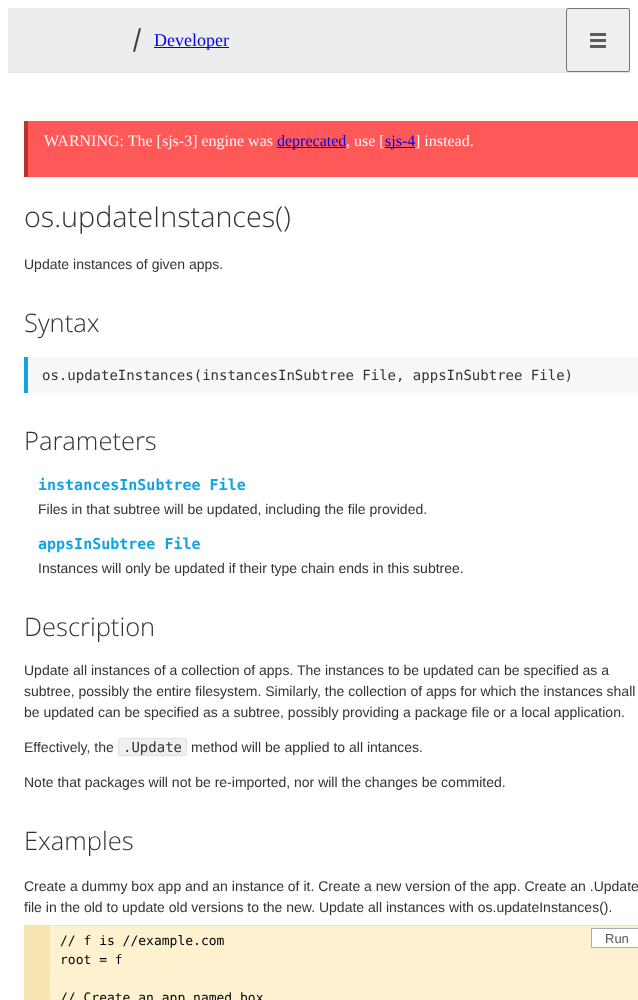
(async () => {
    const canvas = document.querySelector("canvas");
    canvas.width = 638;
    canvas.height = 1000;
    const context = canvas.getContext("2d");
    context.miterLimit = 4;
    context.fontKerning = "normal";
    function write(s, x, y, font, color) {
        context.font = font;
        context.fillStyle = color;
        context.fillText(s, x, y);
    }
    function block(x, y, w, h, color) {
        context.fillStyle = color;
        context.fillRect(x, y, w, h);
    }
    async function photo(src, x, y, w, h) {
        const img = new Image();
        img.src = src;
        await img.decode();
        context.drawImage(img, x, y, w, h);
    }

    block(0, 0, 638, 1000, "rgb(255, 255, 255)");
    block(8, 8, 622, 64, "rgb(236, 238, 238)");
    context.fillStyle = "rgb(60, 65, 68)";
    context.beginPath();
    context.moveTo(139, 28);
    context.lineTo(141, 28.5);
    context.lineTo(135, 52);
    context.lineTo(133, 51.5);
    context.closePath();
    context.fill();
    block(154, 47, 75, 1, "rgb(0, 0, 238)");
    write("Developer", 154, 46, "18px Liberation Serif", "rgb(0, 0, 238)");
    context.fillStyle = "rgb(239, 239, 239)";
    context.beginPath();
    context.roundRect(566.5, 8.5, 63, 63, 1.5);
    context.fill();
    context.strokeStyle = "rgb(118, 118, 118)";
    context.stroke();
    await photo("media/1.png", 590, 33, 16, 15);
    block(8, 72, 622, 1, "rgb(224, 227, 228)");
    block(28, 121, 610, 56, "rgb(255, 88, 88)");
    block(24, 121, 4, 56, "rgb(188, 48, 48)");
    write("WARNING: The [sjs-3] engine was", 44, 146, "16px Liberation Serif", "rgb(255, 246, 246)");
    block(277, 147, 69, 1, "rgb(0, 0, 238)");
    write("deprecated", 277, 146, "16px Liberation Serif", "rgb(0, 0, 238)");
    write(", use [", 346, 146, "16px Liberation Serif", "rgb(255, 246, 246)");
    block(385, 147, 30, 1, "rgb(0, 0, 238)");
    write("sjs-4", 385, 146, "16px Liberation Serif", "rgb(0, 0, 238)");
    write("] instead.", 415, 146, "16px Liberation Serif", "rgb(255, 246, 246)");
    write("os.updateInstances()", 24, 227, "300 28.75px Open Sans", "rgb(51, 51, 51)");
    write("Update instances of given apps.", 24, 269, "14px Liberation Sans", "rgb(51, 51, 51)");
    write("Syntax", 24, 332, "300 25.5px Open Sans", "rgb(51, 51, 51)");
    block(28, 357, 610, 36, "rgb(248, 248, 248)");
    block(24, 357, 4, 36, "rgb(18, 164, 226)");
    write("os.updateInstances(instancesInSubtree File, appsInSubtree File)", 42, 380, "14px DejaVu Sans Mono", "rgb(51, 51, 51)");
    write("Parameters", 24, 450, "300 25.5px Open Sans", "rgb(51, 51, 51)");
    write("instancesInSubtree File", 38, 490, "bold 15px DejaVu Sans Mono", "rgb(18, 164, 226)");
    write("Files in that subtree will be updated, including the file provided.", 38, 514, "14px Liberation Sans", "rgb(51, 51, 51)");
    write("appsInSubtree File", 38, 549, "bold 15px DejaVu Sans Mono", "rgb(18, 164, 226)");
    write("Instances will only be updated if their type chain ends in this subtree.", 38, 573, "14px Liberation Sans", "rgb(51, 51, 51)");
    write("Description", 24, 636, "300 25.5px Open Sans", "rgb(51, 51, 51)");
    write("Update all instances of a collection of apps. The instances to be updated can be specified as a", 24, 675, "14px Liberation Sans", "rgb(51, 51, 51)");
    write("subtree, possibly the entire filesystem. Similarly, the collection of apps for which the instances shall", 24, 696, "14px Liberation Sans", "rgb(51, 51, 51)");
    write("be updated can be specified as a subtree, possibly providing a package file or a local application.", 24, 717, "14px Liberation Sans", "rgb(51, 51, 51)");
    write("Effectively, the", 24, 752, "14px Liberation Sans", "rgb(51, 51, 51)");
    context.fillStyle = "rgb(240, 240, 240)";
    context.beginPath();
    context.roundRect(118.5, 738.5, 68, 17, 1.5);
    context.fill();
    context.strokeStyle = "rgb(224, 224, 224)";
    context.stroke();
    write(".Update", 123, 752, "14px DejaVu Sans Mono", "rgb(51, 51, 51)");
    write("method will be applied to all intances.", 191, 752, "14px Liberation Sans", "rgb(51, 51, 51)");
    write("Note that packages will not be re-imported, nor will the changes be commited.", 24, 787, "14px Liberation Sans", "rgb(51, 51, 51)");
    write("Examples", 24, 850, "300 25.5px Open Sans", "rgb(51, 51, 51)");
    write("Create a dummy box app and an instance of it. Create a new version of the app. Create an .Update", 24, 891, "14px Liberation Sans", "rgb(51, 51, 51)");
    write("file in the old to update old versions to the new. Update all instances with os.updateInstances().", 24, 912, "14px Liberation Sans", "rgb(51, 51, 51)");
    block(50, 926, 588, 74, "rgb(253, 241, 207)");
    block(50, 925, 588, 1, "rgb(247, 229, 176)");
    block(24, 925, 26, 75, "rgb(247, 229, 176)");
    write("// f is //example.com", 60, 945, "13px DejaVu Sans Mono", "rgb(0, 0, 0)");
    write("root = f", 60, 964, "13px DejaVu Sans Mono", "rgb(0, 0, 0)");
    write("// Create an app named box", 60, 1002, "13px DejaVu Sans Mono", "rgb(0, 0, 0)");
    context.fillStyle = "rgb(255, 255, 255)";
    context.beginPath();
    context.rect(591.5, 928.5, 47, 19);
    context.fill();
    context.strokeStyle = "rgb(171, 171, 171)";
    context.stroke();
    write("Run", 605, 943, "13px Liberation Sans", "rgb(85, 85, 85)");
})();
